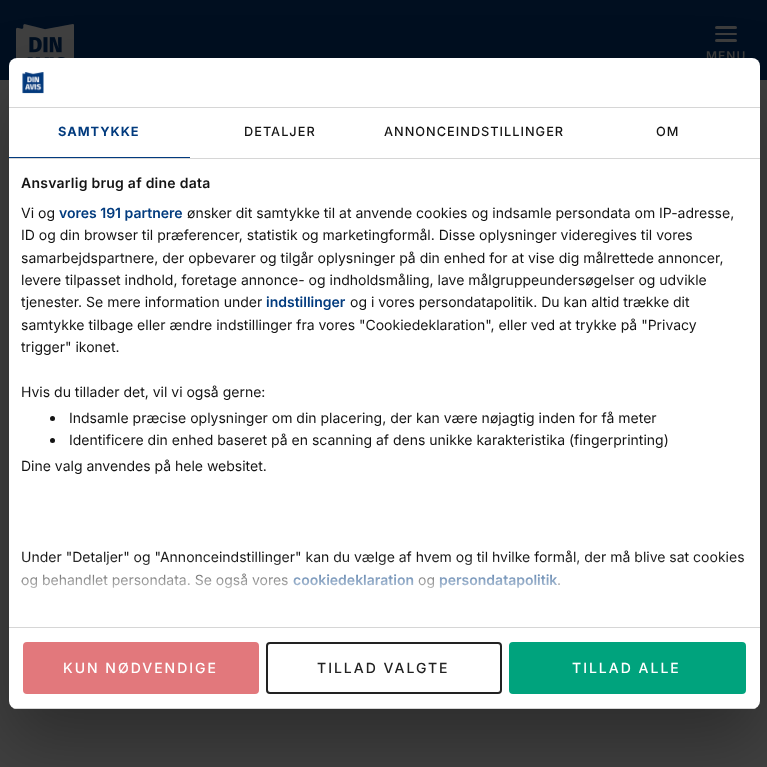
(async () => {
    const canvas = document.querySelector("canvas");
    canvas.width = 767;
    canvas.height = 767;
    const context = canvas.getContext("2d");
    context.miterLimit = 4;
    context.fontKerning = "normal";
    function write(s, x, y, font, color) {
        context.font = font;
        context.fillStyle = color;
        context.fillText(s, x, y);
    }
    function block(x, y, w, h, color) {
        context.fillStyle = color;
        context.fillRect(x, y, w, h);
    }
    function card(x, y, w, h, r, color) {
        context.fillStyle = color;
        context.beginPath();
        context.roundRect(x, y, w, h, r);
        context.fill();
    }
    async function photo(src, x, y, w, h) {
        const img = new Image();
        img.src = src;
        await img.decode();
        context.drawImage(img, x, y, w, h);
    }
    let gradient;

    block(0, 0, 767, 767, "rgb(64, 64, 64)");
    block(0, 0, 767, 80, "rgb(1, 15, 32)");
    await photo("media/1.png", 16, 24, 58, 35);
    card(715, 26, 22, 3, 1.5, "rgb(61, 61, 61)");
    card(715, 33, 22, 2, 1, "rgb(61, 61, 61)");
    card(715, 39, 22, 3, 1.5, "rgb(61, 61, 61)");
    context.letterSpacing = "1px";
    write("MENU", 706, 60, "600 12px Inter", "rgb(61, 61, 61)");
    context.fillStyle = "rgba(0, 0, 0, 0.3)";
    context.filter = "blur(34px)";
    context.beginPath();
    context.roundRect(9, 90, 751, 651, 8);
    context.fill();
    context.filter = "none";
    card(9, 58, 751, 651, 8, "rgb(255, 255, 255)");
    block(9, 107, 751, 1, "rgb(214, 214, 214)");
    await photo("media/2.png", 22, 72, 22, 22);
    block(9, 158, 751, 1, "rgb(214, 214, 214)");
    block(9, 157, 181, 1, "rgb(2, 59, 126)");
    write("SAMTYKKE", 58, 136, "bold 12.75px Inter", "rgb(2, 59, 126)");
    write("DETALJER", 244, 136, "500 12.75px Inter", "rgb(20, 20, 20)");
    write("ANNONCEINDSTILLINGER", 384, 136, "500 12.75px Inter", "rgb(20, 20, 20)");
    write("OM", 656, 136, "500 12.75px Inter", "rgb(20, 20, 20)");
    block(9, 627, 751, 1, "rgb(214, 214, 214)");
    context.letterSpacing = "0.25px";
    write("Ansvarlig brug af dine data", 21, 188, "600 14px Inter", "rgb(20, 20, 20)");
    context.letterSpacing = "0px";
    write("Vi og", 21, 218, "14px Inter", "rgb(20, 20, 20)");
    write("vores 191 partnere", 59, 218, "600 14px Inter", "rgb(2, 59, 126)");
    write("ønsker dit samtykke til at anvende cookies og indsamle persondata om IP-adresse,", 187, 218, "14px Inter", "rgb(20, 20, 20)");
    write("ID og din browser til præferencer, statistik og marketingformål. Disse oplysninger videregives til vores", 21, 240, "14px Inter", "rgb(20, 20, 20)");
    write("samarbejdspartnere, der opbevarer og tilgår oplysninger på din enhed for at vise dig målrettede annoncer,", 21, 263, "14px Inter", "rgb(20, 20, 20)");
    write("levere tilpasset indhold, foretage annonce- og indholdsmåling, lave målgruppeundersøgelser og udvikle", 21, 285, "14px Inter", "rgb(20, 20, 20)");
    write("tjenester. Se mere information under", 21, 307, "14px Inter", "rgb(20, 20, 20)");
    write("indstillinger", 266, 307, "600 14px Inter", "rgb(2, 59, 126)");
    write("og i vores persondatapolitik. Du kan altid trække dit", 350, 307, "14px Inter", "rgb(20, 20, 20)");
    write("samtykke tilbage eller ændre indstillinger fra vores \"Cookiedeklaration\", eller ved at trykke på \"Privacy", 21, 330, "14px Inter", "rgb(20, 20, 20)");
    write("trigger\" ikonet.", 21, 352, "14px Inter", "rgb(20, 20, 20)");
    write("Hvis du tillader det, vil vi også gerne:", 21, 397, "14px Inter", "rgb(20, 20, 20)");
    context.beginPath();
    context.arc(52.5, 418.5, 2.5, 0, Math.PI * 2);
    context.fill();
    write("Indsamle præcise oplysninger om din placering, der kan være nøjagtig inden for få meter", 69, 423, "14px Inter", "rgb(20, 20, 20)");
    context.beginPath();
    context.arc(52.5, 440.5, 2.5, 0, Math.PI * 2);
    context.fill();
    write("Identificere din enhed baseret på en scanning af dens unikke karakteristika (fingerprinting)", 69, 445, "14px Inter", "rgb(20, 20, 20)");
    write("Dine valg anvendes på hele websitet.", 21, 471, "14px Inter", "rgb(20, 20, 20)");
    write("Under \"Detaljer\" og \"Annonceindstillinger\" kan du vælge af hvem og til hvilke formål, der må blive sat cookies", 21, 562, "14px Inter", "rgb(20, 20, 20)");
    write("og behandlet persondata. Se også vores", 21, 585, "14px Inter", "rgb(20, 20, 20)");
    write("cookiedeklaration", 293, 585, "600 14px Inter", "rgb(2, 59, 126)");
    write("og", 418, 585, "14px Inter", "rgb(20, 20, 20)");
    write("persondatapolitik", 439, 585, "600 14px Inter", "rgb(2, 59, 126)");
    write(".", 557, 585, "14px Inter", "rgb(20, 20, 20)");
    gradient = context.createLinearGradient(378, 627, 378, 557);
    gradient.addColorStop(0, "rgb(255, 255, 255)");
    gradient.addColorStop(0.5, "rgba(255, 255, 255, 0.8)");
    gradient.addColorStop(1, "rgba(255, 255, 255, 0)");
    context.fillStyle = gradient;
    context.fillRect(22, 558, 722, 30);
    context.save();
    context.beginPath();
    context.roundRect(9, 58, 751, 651, 8);
    context.clip();
    block(9, 708, 751, 1, "rgb(214, 214, 214)");
    context.restore();
    context.fillStyle = "rgb(226, 120, 124)";
    context.beginPath();
    context.roundRect(24, 643, 234, 50, 3);
    context.fill();
    context.strokeStyle = "rgb(226, 120, 124)";
    context.lineWidth = 2;
    context.stroke();
    context.letterSpacing = "2px";
    write("KUN NØDVENDIGE", 63, 673, "500 14px Inter", "rgb(255, 255, 255)");
    context.beginPath();
    context.roundRect(267, 643, 234, 50, 3);
    context.strokeStyle = "rgb(34, 34, 34)";
    context.stroke();
    write("TILLAD VALGTE", 317, 673, "500 14px Inter", "rgb(34, 34, 34)");
    context.fillStyle = "rgb(0, 163, 125)";
    context.beginPath();
    context.roundRect(510, 643, 235, 50, 3);
    context.fill();
    context.strokeStyle = "rgb(0, 163, 125)";
    context.stroke();
    write("TILLAD ALLE", 572, 673, "500 14px Inter", "rgb(255, 255, 255)");
})();
